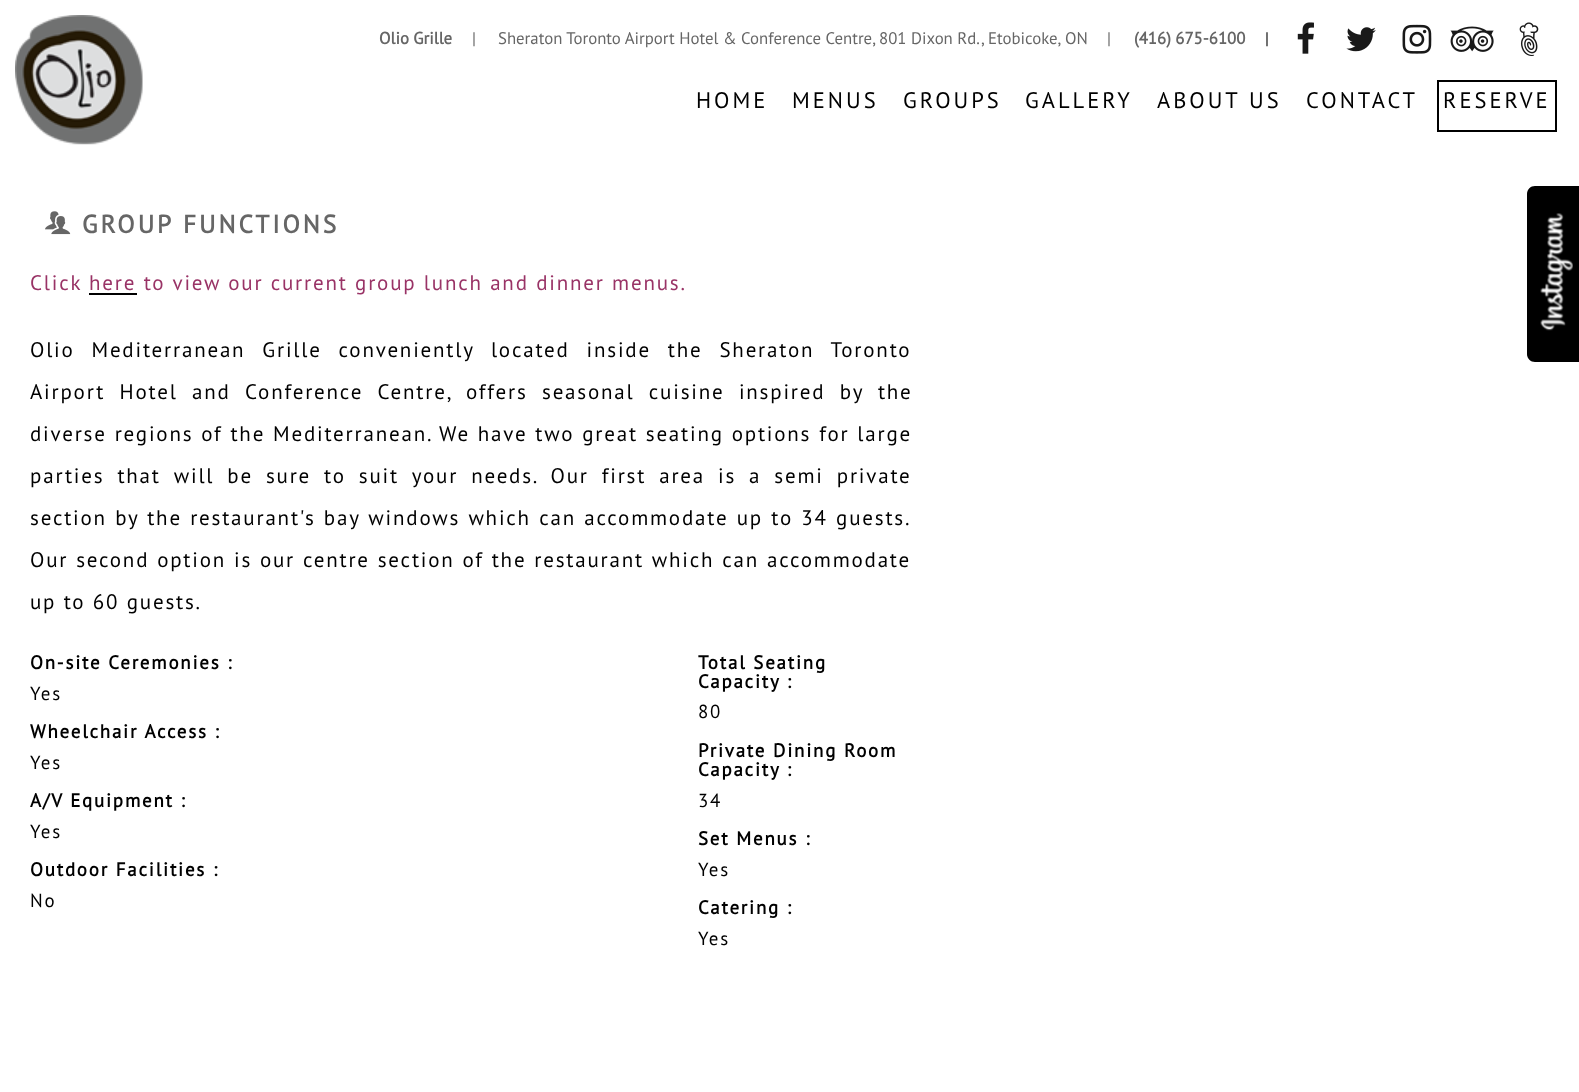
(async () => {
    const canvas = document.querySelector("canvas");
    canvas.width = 1579;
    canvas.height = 1092;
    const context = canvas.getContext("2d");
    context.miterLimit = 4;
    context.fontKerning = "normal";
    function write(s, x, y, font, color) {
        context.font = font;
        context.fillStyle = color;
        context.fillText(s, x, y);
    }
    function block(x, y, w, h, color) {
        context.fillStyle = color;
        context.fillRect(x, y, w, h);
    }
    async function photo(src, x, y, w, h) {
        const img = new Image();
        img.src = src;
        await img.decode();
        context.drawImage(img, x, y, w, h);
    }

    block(0, 0, 1579, 1092, "rgb(255, 255, 255)");
    await photo("media/1.png", 15, 15, 128, 130);
    write("Olio Grille", 379, 44, "bold 16.8px PT Sans", "rgb(102, 102, 102)");
    write("|", 472, 44, "16.8px PT Sans", "rgb(102, 102, 102)");
    write("Sheraton Toronto Airport Hotel & Conference Centre,", 498, 44, "16.8px PT Sans", "rgb(102, 102, 102)");
    write("801 Dixon Rd.", 879, 44, "16.8px PT Sans", "rgb(102, 102, 102)");
    write(",", 981, 44, "16.8px PT Sans", "rgb(102, 102, 102)");
    write("Etobicoke,", 988, 44, "16.8px PT Sans", "rgb(102, 102, 102)");
    write("ON", 1065, 44, "16.8px PT Sans", "rgb(102, 102, 102)");
    write("|", 1107, 44, "16.8px PT Sans", "rgb(102, 102, 102)");
    write("(416) 675-6100", 1134, 44, "bold 16.8px PT Sans", "rgb(102, 102, 102)");
    write("|", 1265, 44, "16.8px PT Sans", "rgb(0, 0, 0)");
    await photo("media/2.png", 1297, 22, 17, 32);
    await photo("media/3.png", 1346, 27, 30, 25);
    await photo("media/4.png", 1402, 24, 30, 30);
    await photo("media/5.png", 1450, 26, 44, 26);
    await photo("media/6.png", 1519, 22, 20, 34);
    context.letterSpacing = "3px";
    write("HOME", 696, 108, "22.5px PT Sans", "rgb(0, 0, 0)");
    write("MENUS", 792, 108, "22.5px PT Sans", "rgb(0, 0, 0)");
    write("GROUPS", 903, 108, "22.5px PT Sans", "rgb(0, 0, 0)");
    write("GALLERY", 1025, 108, "22.5px PT Sans", "rgb(0, 0, 0)");
    write("ABOUT US", 1157, 108, "22.5px PT Sans", "rgb(0, 0, 0)");
    write("CONTACT", 1306, 108, "22.5px PT Sans", "rgb(0, 0, 0)");
    context.strokeStyle = "rgb(0, 0, 0)";
    context.lineWidth = 2;
    context.strokeRect(1438, 81, 118, 50);
    write("RESERVE", 1443, 108, "22.5px PT Sans", "rgb(0, 0, 0)");
    await photo("media/7.png", 45, 211, 26, 24);
    write("GROUP FUNCTIONS", 82, 233, "bold 25.25px PT Sans", "rgb(102, 102, 102)");
    context.letterSpacing = "1.8px";
    write("Click here to view our current group lunch and dinner menus.", 30, 290, "21px PT Sans", "rgb(153, 51, 102)");
    block(89, 293, 48, 2, "rgb(0, 0, 0)");
    context.wordSpacing = "9.5px";
    write("Olio Mediterranean Grille conveniently located inside the Sheraton Toronto", 30, 357, "21px PT Sans", "rgb(0, 0, 0)");
    context.wordSpacing = "7px";
    write("Airport Hotel and Conference Centre, offers seasonal cuisine inspired by the", 30, 399, "21px PT Sans", "rgb(0, 0, 0)");
    context.wordSpacing = "0.5px";
    write("diverse regions of the Mediterranean. We have two great seating options for large", 30, 441, "21px PT Sans", "rgb(0, 0, 0)");
    context.wordSpacing = "5.6px";
    write("parties that will be sure to suit your needs. Our first area is a semi private", 30, 483, "21px PT Sans", "rgb(0, 0, 0)");
    context.wordSpacing = "0.9px";
    write("section by the restaurant's bay windows which can accommodate up to 34 guests.", 30, 525, "21px PT Sans", "rgb(0, 0, 0)");
    context.wordSpacing = "0.5px";
    write("Our second option is our centre section of the restaurant which can accommodate", 30, 567, "21px PT Sans", "rgb(0, 0, 0)");
    context.wordSpacing = "0px";
    write("up to 60 guests.", 30, 609, "21px PT Sans", "rgb(0, 0, 0)");
    write("On-site Ceremonies :", 30, 669, "bold 18.9px PT Sans", "rgb(0, 0, 0)");
    write("Yes", 30, 700, "18.9px PT Sans", "rgb(0, 0, 0)");
    write("Wheelchair Access :", 30, 738, "bold 18.9px PT Sans", "rgb(0, 0, 0)");
    write("Yes", 30, 769, "18.9px PT Sans", "rgb(0, 0, 0)");
    write("A/V Equipment :", 30, 807, "bold 18.9px PT Sans", "rgb(0, 0, 0)");
    write("Yes", 30, 838, "18.9px PT Sans", "rgb(0, 0, 0)");
    write("Outdoor Facilities :", 30, 876, "bold 18.9px PT Sans", "rgb(0, 0, 0)");
    write("No", 30, 907, "18.9px PT Sans", "rgb(0, 0, 0)");
    write("Total Seating", 698, 669, "bold 18.9px PT Sans", "rgb(0, 0, 0)");
    write("Capacity :", 698, 688, "bold 18.9px PT Sans", "rgb(0, 0, 0)");
    write("80", 698, 718, "18.9px PT Sans", "rgb(0, 0, 0)");
    write("Private Dining Room", 698, 757, "bold 18.9px PT Sans", "rgb(0, 0, 0)");
    write("Capacity :", 698, 776, "bold 18.9px PT Sans", "rgb(0, 0, 0)");
    write("34", 698, 807, "18.9px PT Sans", "rgb(0, 0, 0)");
    write("Set Menus :", 698, 845, "bold 18.9px PT Sans", "rgb(0, 0, 0)");
    write("Yes", 698, 876, "18.9px PT Sans", "rgb(0, 0, 0)");
    write("Catering :", 698, 914, "bold 18.9px PT Sans", "rgb(0, 0, 0)");
    write("Yes", 698, 945, "18.9px PT Sans", "rgb(0, 0, 0)");
    context.beginPath();
    context.moveTo(1535, 186);
    context.lineTo(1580, 186);
    context.lineTo(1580, 362);
    context.lineTo(1535, 362);
    context.bezierCurveTo(1530.5, 362, 1527, 358.5, 1527, 354);
    context.lineTo(1527, 194);
    context.bezierCurveTo(1527, 189.5, 1530.5, 186, 1535, 186);
    context.closePath();
    context.fill();
    await photo("media/8.png", 1540, 213, 33, 118);
})();
